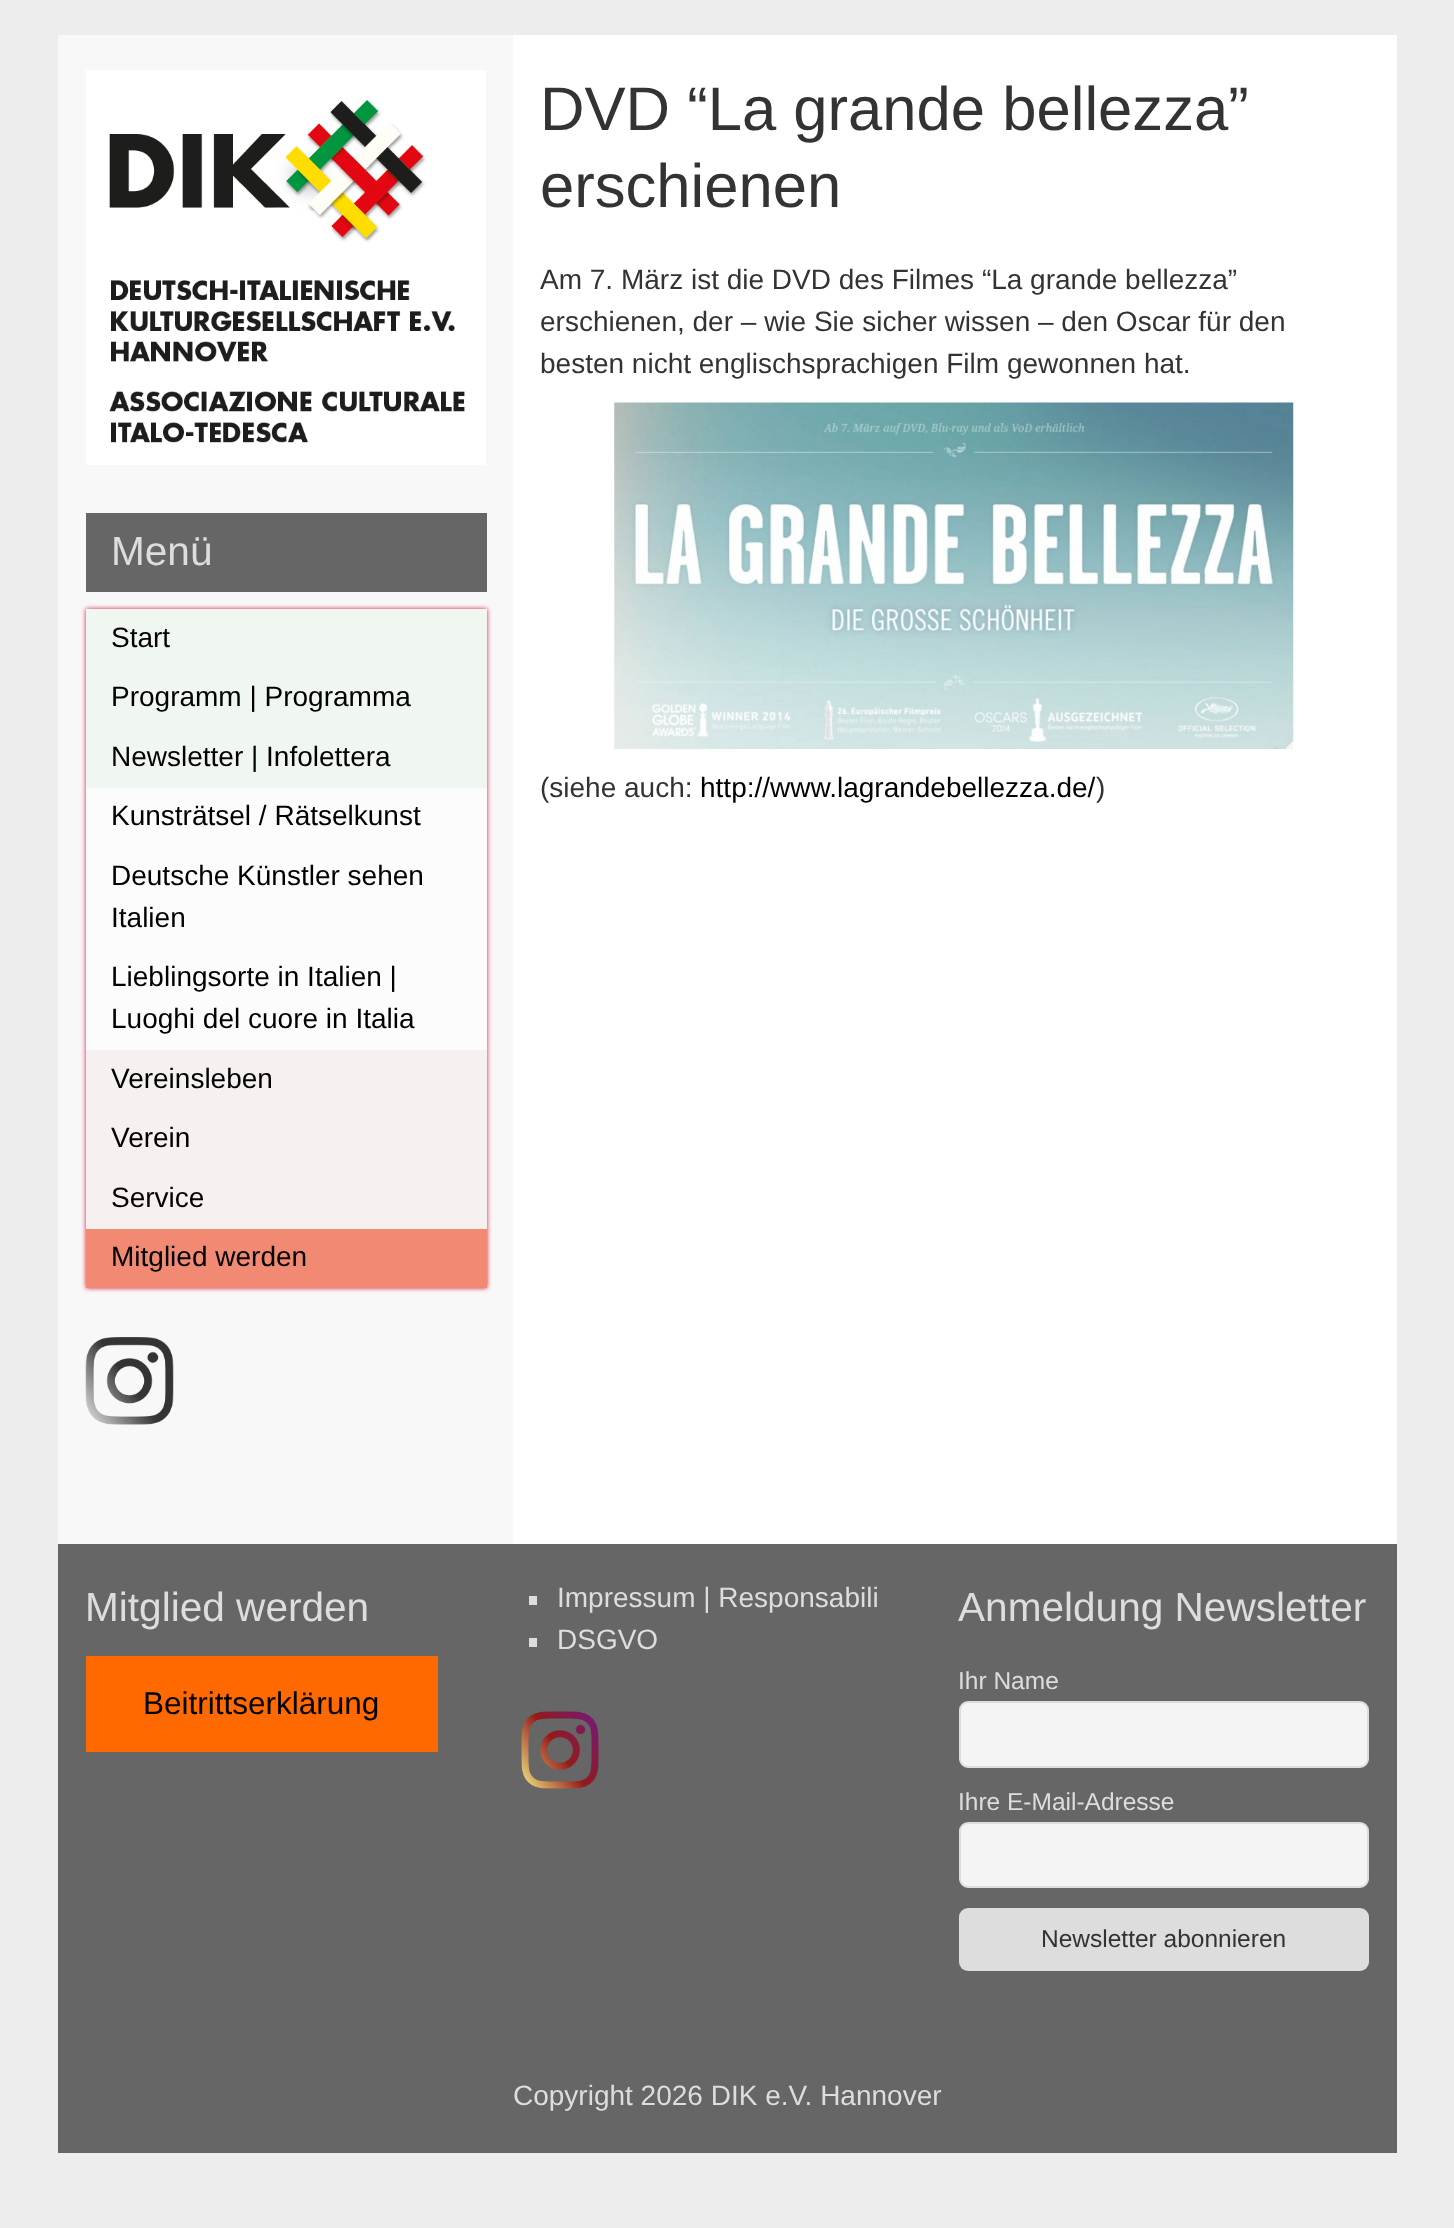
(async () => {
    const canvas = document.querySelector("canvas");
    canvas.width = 1454;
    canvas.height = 2228;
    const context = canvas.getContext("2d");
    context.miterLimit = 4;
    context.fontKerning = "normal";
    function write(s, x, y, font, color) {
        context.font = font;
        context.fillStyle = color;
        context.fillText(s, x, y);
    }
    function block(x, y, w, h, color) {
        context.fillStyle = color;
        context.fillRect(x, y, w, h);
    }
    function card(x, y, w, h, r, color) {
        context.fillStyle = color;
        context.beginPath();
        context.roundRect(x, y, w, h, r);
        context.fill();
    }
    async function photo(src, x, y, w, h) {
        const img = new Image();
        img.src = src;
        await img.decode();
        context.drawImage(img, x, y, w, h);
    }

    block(0, 0, 1454, 2228, "rgb(237, 237, 237)");
    block(513, 35, 884, 1509, "rgb(255, 255, 255)");
    write("DVD “La grande bellezza”", 540, 130, "61.6px Liberation Sans", "rgb(51, 51, 51)");
    write("erschienen", 540, 207, "61.6px Liberation Sans", "rgb(51, 51, 51)");
    write("Am 7. März ist die DVD des Filmes “La grande bellezza”", 540, 289, "28px Liberation Sans", "rgb(51, 51, 51)");
    write("erschienen, der – wie Sie sicher wissen – den Oscar für den", 540, 331, "28px Liberation Sans", "rgb(51, 51, 51)");
    write("besten nicht englischsprachigen Film gewonnen hat.", 540, 373, "28px Liberation Sans", "rgb(51, 51, 51)");
    await photo("media/1.png", 614, 402, 680, 347);
    write("(siehe auch:", 540, 797, "28px Liberation Sans", "rgb(51, 51, 51)");
    write("http://www.lagrandebellezza.de/", 700, 797, "28px Liberation Sans", "rgb(0, 0, 0)");
    write(")", 1096, 797, "28px Liberation Sans", "rgb(51, 51, 51)");
    block(58, 35, 455, 1509, "rgb(248, 248, 248)");
    await photo("media/2.png", 86, 70, 400, 395);
    block(86, 513, 401, 79, "rgb(102, 102, 102)");
    write("Menü", 111, 565, "40.6px Liberation Sans", "rgb(221, 221, 221)");
    context.fillStyle = "rgb(220, 20, 60)";
    context.filter = "blur(2.5px)";
    context.beginPath();
    context.rect(86, 609, 401, 679);
    context.fill();
    context.filter = "none";
    block(86, 609, 401, 179, "rgb(240, 247, 240)");
    write("Start", 111, 647, "28px Liberation Sans", "rgb(0, 0, 0)");
    write("Programm | Programma", 111, 706, "28px Liberation Sans", "rgb(0, 0, 0)");
    write("Newsletter | Infolettera", 111, 766, "28px Liberation Sans", "rgb(0, 0, 0)");
    block(86, 788, 401, 262, "rgb(252, 252, 252)");
    write("Kunsträtsel / Rätselkunst", 111, 825, "28px Liberation Sans", "rgb(0, 0, 0)");
    write("Deutsche Künstler sehen", 111, 885, "28px Liberation Sans", "rgb(0, 0, 0)");
    write("Italien", 111, 927, "28px Liberation Sans", "rgb(0, 0, 0)");
    write("Lieblingsorte in Italien |", 111, 986, "28px Liberation Sans", "rgb(0, 0, 0)");
    write("Luoghi del cuore in Italia", 111, 1028, "28px Liberation Sans", "rgb(0, 0, 0)");
    block(86, 1050, 401, 179, "rgb(247, 240, 240)");
    write("Vereinsleben", 111, 1088, "28px Liberation Sans", "rgb(0, 0, 0)");
    write("Verein", 111, 1147, "28px Liberation Sans", "rgb(0, 0, 0)");
    write("Service", 111, 1207, "28px Liberation Sans", "rgb(0, 0, 0)");
    block(86, 1229, 401, 59, "rgb(241, 137, 115)");
    write("Mitglied werden", 111, 1266, "28px Liberation Sans", "rgb(0, 0, 0)");
    await photo("media/3.png", 85, 1337, 89, 88);
    block(58, 1544, 1339, 609, "rgb(102, 102, 102)");
    write("Mitglied werden", 85, 1621, "40.6px Liberation Sans", "rgb(221, 221, 221)");
    block(86, 1656, 352, 96, "rgb(255, 105, 0)");
    write("Beitrittserklärung", 143, 1714, "31.5px Liberation Sans", "rgb(0, 0, 0)");
    block(529, 1596, 8, 9, "rgb(221, 221, 221)");
    write("Impressum | Responsabili", 557, 1607, "28px Liberation Sans", "rgb(221, 221, 221)");
    block(529, 1638, 8, 9, "rgb(221, 221, 221)");
    write("DSGVO", 557, 1649, "28px Liberation Sans", "rgb(221, 221, 221)");
    await photo("media/4.png", 521, 1711, 78, 78);
    write("Anmeldung Newsletter", 958, 1621, "40.6px Liberation Sans", "rgb(221, 221, 221)");
    write("Ihr Name", 958, 1689, "24.5px Liberation Sans", "rgb(221, 221, 221)");
    context.fillStyle = "rgb(244, 244, 244)";
    context.beginPath();
    context.roundRect(960, 1702, 408, 65, 8);
    context.fill();
    context.strokeStyle = "rgb(221, 221, 221)";
    context.lineWidth = 2;
    context.stroke();
    write("Ihre E-Mail-Adresse", 958, 1810, "24.5px Liberation Sans", "rgb(221, 221, 221)");
    context.fillStyle = "rgb(244, 244, 244)";
    context.beginPath();
    context.roundRect(960, 1823, 408, 64, 8);
    context.fill();
    context.stroke();
    card(959, 1908, 410, 63, 9, "rgb(221, 221, 221)");
    write("Newsletter abonnieren", 1041, 1947, "24.5px Liberation Sans", "rgb(51, 51, 51)");
    write("Copyright 2026 DIK e.V. Hannover", 513, 2105, "28px Liberation Sans", "rgb(221, 221, 221)");
})();
